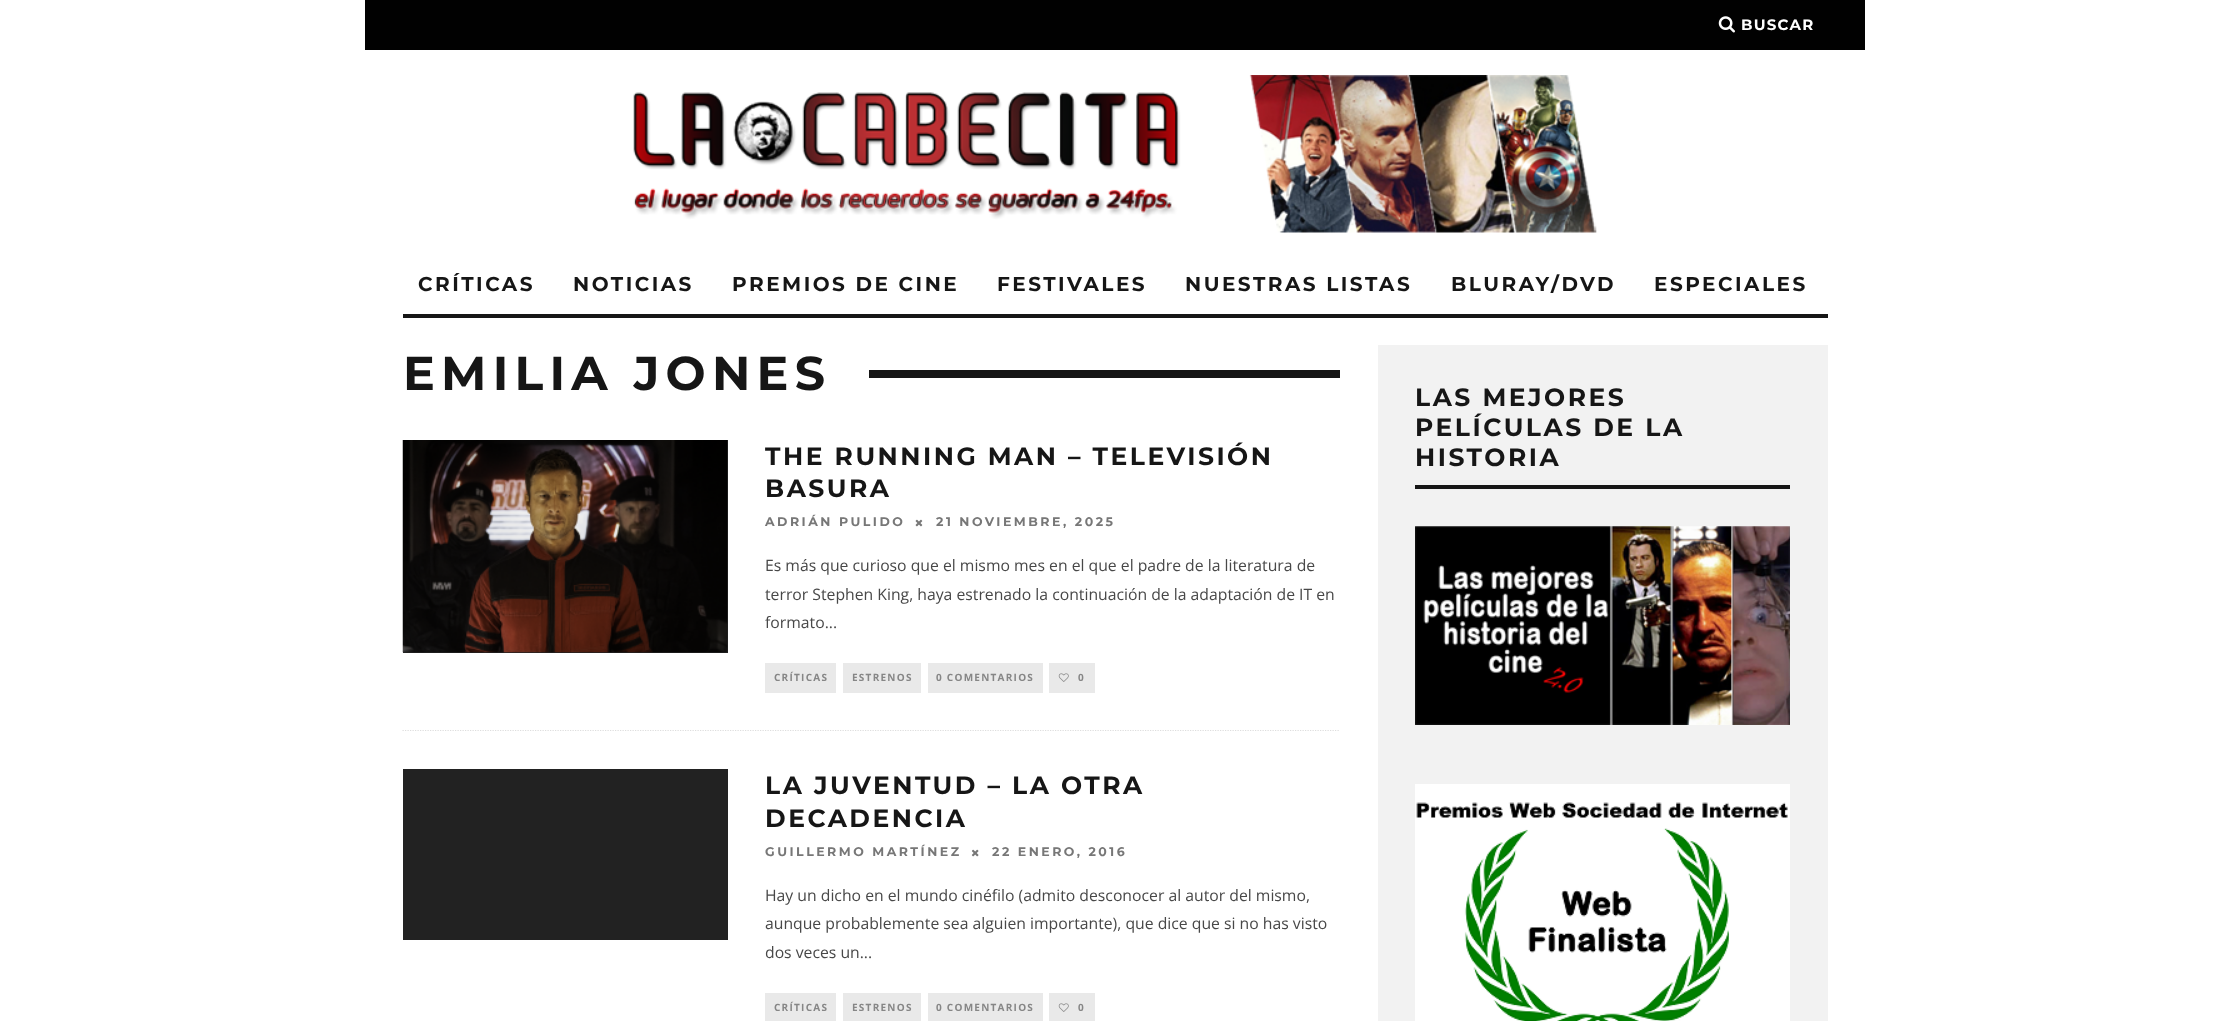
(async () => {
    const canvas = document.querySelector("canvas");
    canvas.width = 2230;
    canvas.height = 1021;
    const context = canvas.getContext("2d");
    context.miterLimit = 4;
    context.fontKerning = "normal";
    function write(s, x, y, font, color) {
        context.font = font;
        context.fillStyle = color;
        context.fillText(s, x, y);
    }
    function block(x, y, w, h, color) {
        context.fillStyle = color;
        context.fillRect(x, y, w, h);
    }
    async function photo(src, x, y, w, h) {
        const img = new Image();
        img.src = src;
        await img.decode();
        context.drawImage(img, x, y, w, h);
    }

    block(0, 0, 2230, 1021, "rgb(255, 255, 255)");
    block(365, 0, 1500, 50, "rgb(1, 1, 1)");
    await photo("media/1.png", 1718, 16, 17, 17);
    context.letterSpacing = "1.25px";
    write("BUSCAR", 1741, 30, "bold 15px Montserrat", "rgb(255, 255, 255)");
    await photo("media/2.png", 633, 75, 964, 158);
    block(403, 314, 1425, 4, "rgb(22, 22, 22)");
    context.letterSpacing = "2.5px";
    write("CRÍTICAS", 418, 291, "bold 20px Montserrat", "rgb(22, 22, 22)");
    write("NOTICIAS", 573, 291, "bold 20px Montserrat", "rgb(22, 22, 22)");
    write("PREMIOS DE CINE", 732, 291, "bold 20px Montserrat", "rgb(22, 22, 22)");
    write("FESTIVALES", 997, 291, "bold 20px Montserrat", "rgb(22, 22, 22)");
    write("NUESTRAS LISTAS", 1185, 291, "bold 20px Montserrat", "rgb(22, 22, 22)");
    write("BLURAY/DVD", 1451, 291, "bold 20px Montserrat", "rgb(22, 22, 22)");
    write("ESPECIALES", 1654, 291, "bold 20px Montserrat", "rgb(22, 22, 22)");
    context.letterSpacing = "6.25px";
    write("EMILIA JONES", 403, 390, "bold 47.5px Montserrat", "rgb(22, 22, 22)");
    block(869, 370, 471, 8, "rgb(22, 22, 22)");
    context.beginPath();
    context.moveTo(402.5, 730.5);
    context.lineTo(1340, 730.5);
    context.strokeStyle = "rgb(221, 221, 221)";
    context.lineWidth = 1.2;
    context.setLineDash([1.25, 1.25]);
    context.stroke();
    block(403, 440, 325, 213, "rgb(34, 34, 34)");
    await photo("media/3.png", 402, 440, 326, 213);
    context.letterSpacing = "2.5px";
    write("THE RUNNING MAN – TELEVISIÓN", 765, 465, "bold 25px Montserrat", "rgb(22, 22, 22)");
    write("BASURA", 765, 497, "bold 25px Montserrat", "rgb(22, 22, 22)");
    write("ADRIÁN PULIDO", 765, 526, "bold 12.5px Montserrat", "rgb(119, 119, 119)");
    await photo("media/4.png", 915, 519, 8, 8);
    write("21 NOVIEMBRE, 2025", 936, 526, "bold 12.5px Montserrat", "rgb(119, 119, 119)");
    context.letterSpacing = "0px";
    write("Es más que curioso que el mismo mes en el que el padre de la literatura de", 765, 571, "15.75px Open Sans", "rgb(72, 72, 72)");
    write("terror Stephen King, haya estrenado la continuación de la adaptación de IT en", 765, 600, "15.75px Open Sans", "rgb(72, 72, 72)");
    write("formato...", 765, 628, "15.75px Open Sans", "rgb(72, 72, 72)");
    block(765, 663, 71, 30, "rgb(233, 233, 233)");
    context.letterSpacing = "1.25px";
    write("CRÍTICAS", 774, 681, "bold 10px Open Sans", "rgb(134, 134, 134)");
    block(843, 663, 78, 30, "rgb(233, 233, 233)");
    write("ESTRENOS", 852, 681, "bold 10px Open Sans", "rgb(134, 134, 134)");
    block(928, 663, 115, 30, "rgb(233, 233, 233)");
    write("0 COMENTARIOS", 936, 681, "bold 10px Open Sans", "rgb(134, 134, 134)");
    block(1049, 663, 46, 30, "rgb(233, 233, 233)");
    await photo("media/5.png", 1058, 673, 11, 9);
    context.letterSpacing = "2.5px";
    write("0", 1078, 681, "bold 10px Open Sans", "rgb(134, 134, 134)");
    block(403, 769, 325, 171, "rgb(34, 34, 34)");
    write("LA JUVENTUD – LA OTRA", 765, 794, "bold 25px Montserrat", "rgb(22, 22, 22)");
    write("DECADENCIA", 765, 827, "bold 25px Montserrat", "rgb(22, 22, 22)");
    write("GUILLERMO MARTÍNEZ", 765, 856, "bold 12.5px Montserrat", "rgb(119, 119, 119)");
    await photo("media/6.png", 971, 849, 8, 8);
    write("22 ENERO, 2016", 992, 856, "bold 12.5px Montserrat", "rgb(119, 119, 119)");
    context.letterSpacing = "0px";
    write("Hay un dicho en el mundo cinéfilo (admito desconocer al autor del mismo,", 765, 901, "15.75px Open Sans", "rgb(72, 72, 72)");
    write("aunque probablemente sea alguien importante), que dice que si no has visto", 765, 929, "15.75px Open Sans", "rgb(72, 72, 72)");
    write("dos veces un...", 765, 958, "15.75px Open Sans", "rgb(72, 72, 72)");
    block(765, 993, 71, 28, "rgb(233, 233, 233)");
    context.letterSpacing = "1.25px";
    write("CRÍTICAS", 774, 1011, "bold 10px Open Sans", "rgb(134, 134, 134)");
    block(843, 993, 78, 28, "rgb(233, 233, 233)");
    write("ESTRENOS", 852, 1011, "bold 10px Open Sans", "rgb(134, 134, 134)");
    block(928, 993, 115, 28, "rgb(233, 233, 233)");
    write("0 COMENTARIOS", 936, 1011, "bold 10px Open Sans", "rgb(134, 134, 134)");
    block(1049, 993, 46, 28, "rgb(233, 233, 233)");
    await photo("media/5.png", 1058, 1003, 11, 9);
    context.letterSpacing = "2.5px";
    write("0", 1078, 1011, "bold 10px Open Sans", "rgb(134, 134, 134)");
    block(1378, 345, 450, 676, "rgb(242, 242, 242)");
    block(1415, 485, 375, 4, "rgb(22, 22, 22)");
    write("LAS MEJORES", 1415, 406, "bold 25px Montserrat", "rgb(22, 22, 22)");
    write("PELÍCULAS DE LA", 1415, 436, "bold 25px Montserrat", "rgb(22, 22, 22)");
    write("HISTORIA", 1415, 466, "bold 25px Montserrat", "rgb(22, 22, 22)");
    await photo("media/7.png", 1415, 526, 375, 199);
    await photo("media/8.png", 1415, 784, 375, 237);
})();
